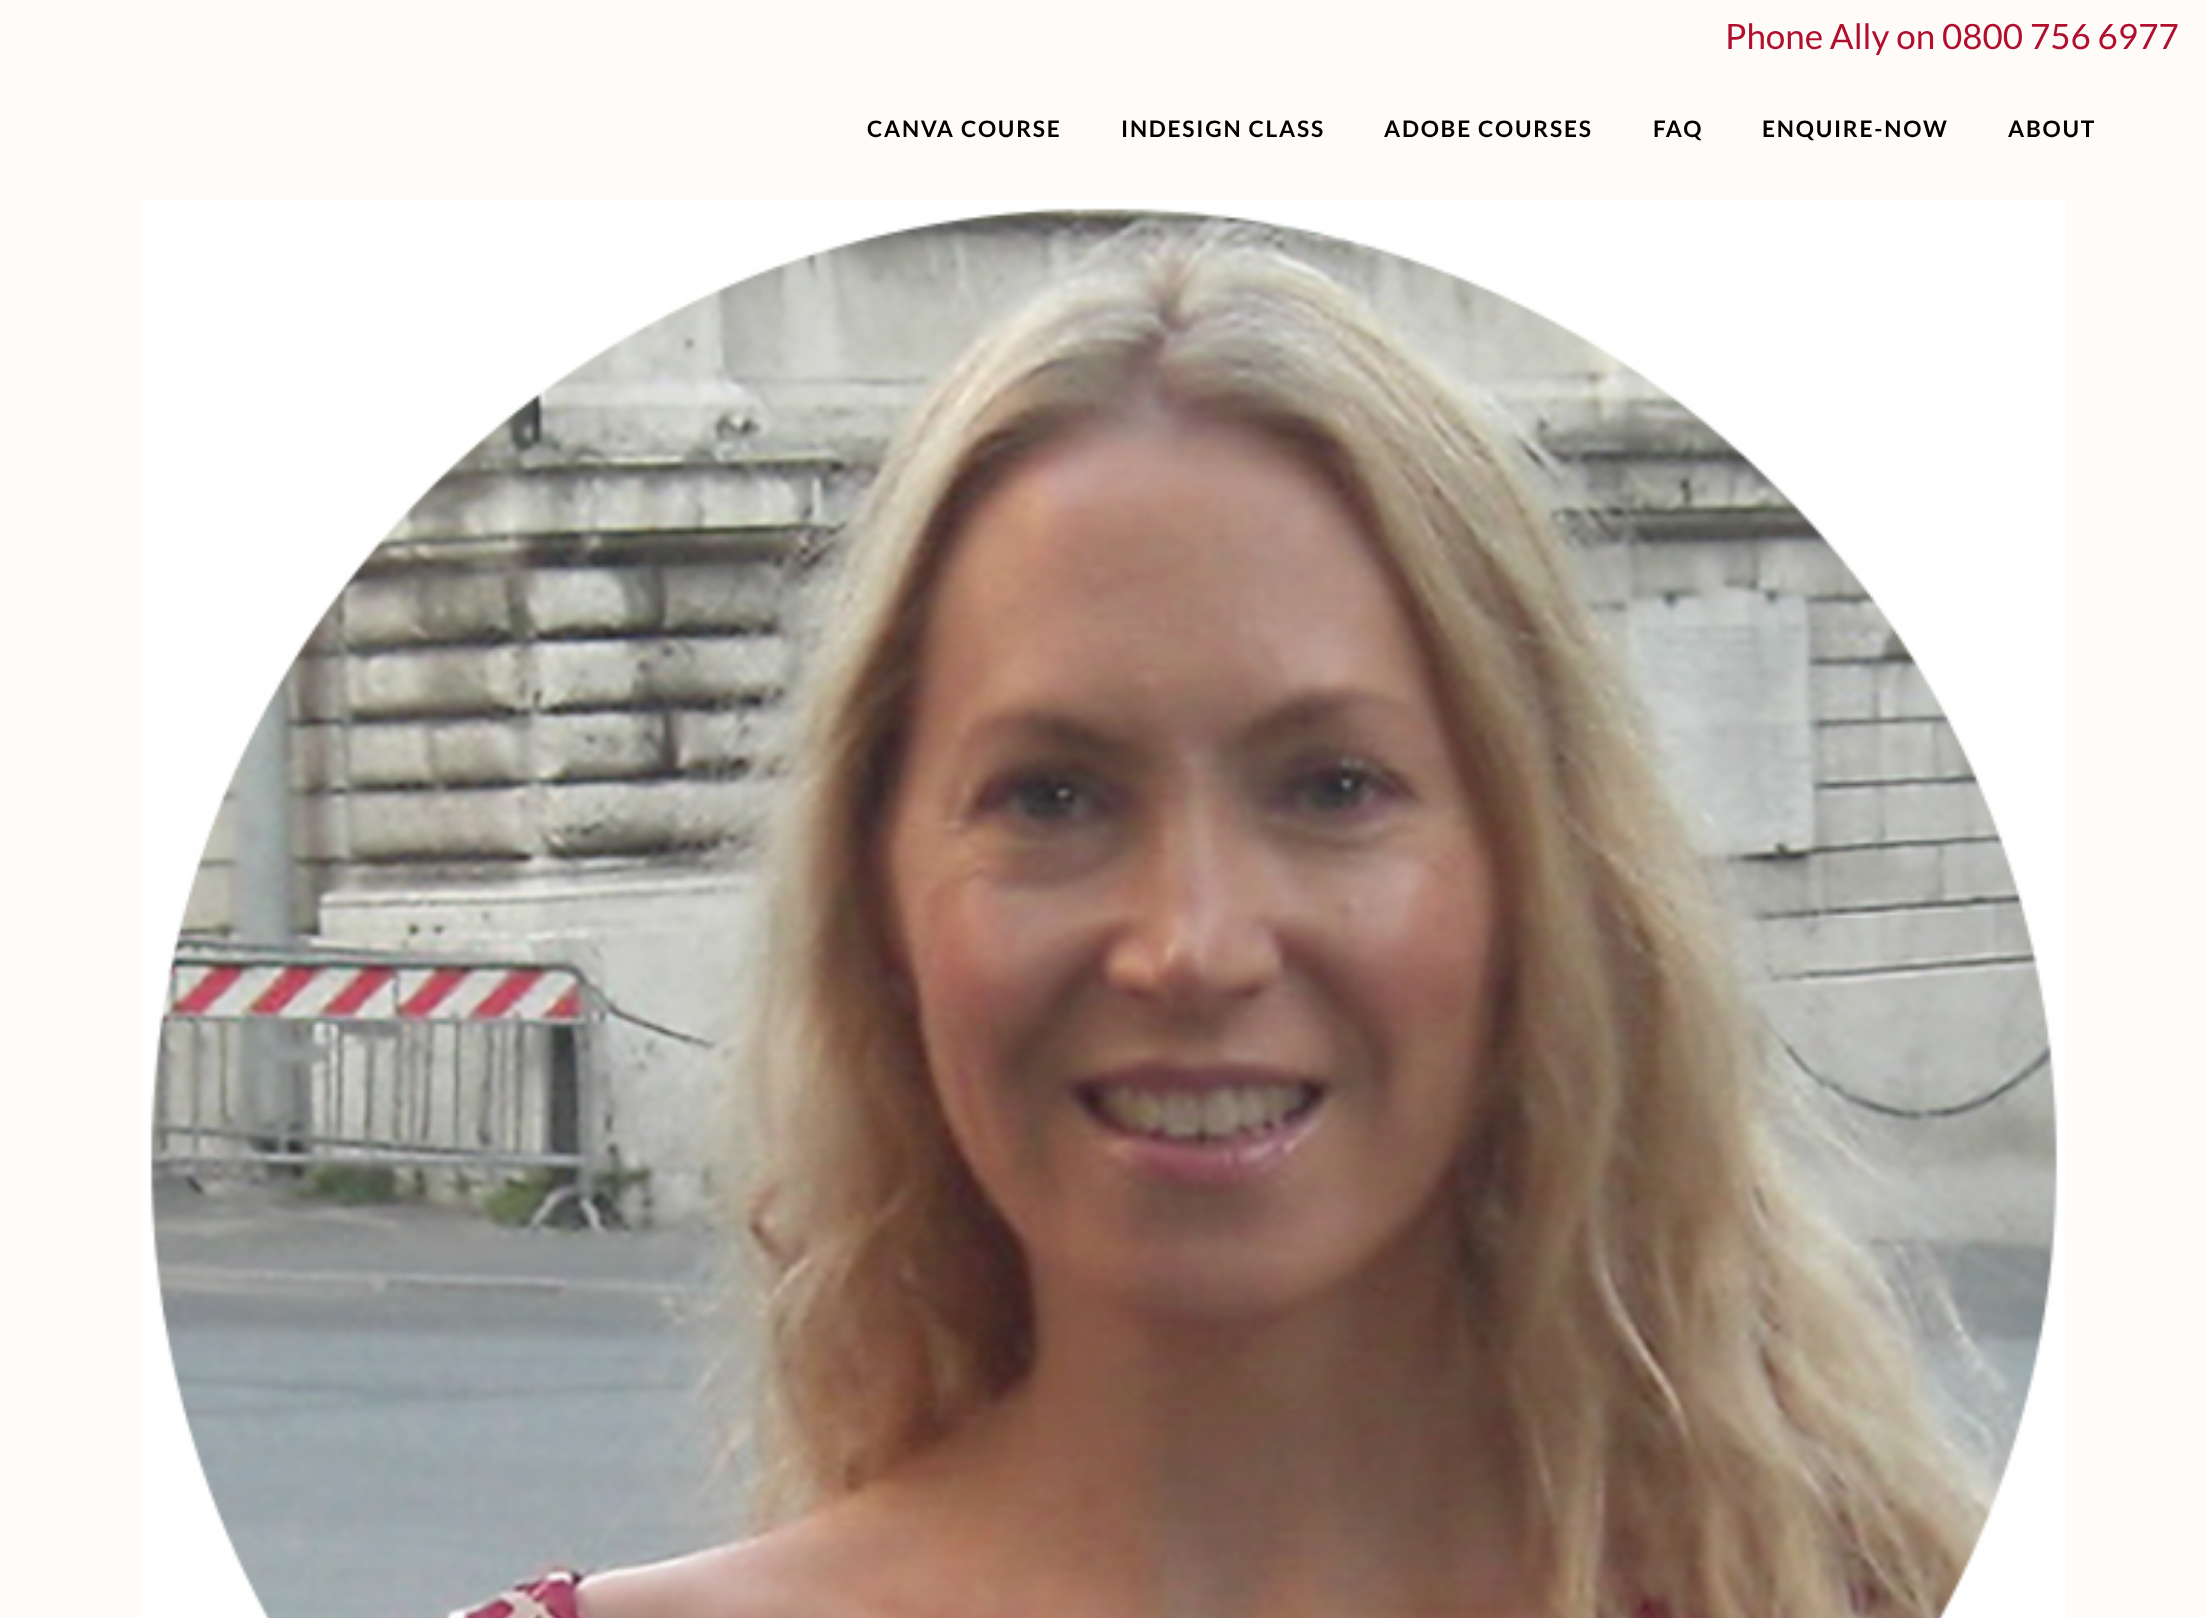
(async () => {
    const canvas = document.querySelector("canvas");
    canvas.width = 2205;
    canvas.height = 1618;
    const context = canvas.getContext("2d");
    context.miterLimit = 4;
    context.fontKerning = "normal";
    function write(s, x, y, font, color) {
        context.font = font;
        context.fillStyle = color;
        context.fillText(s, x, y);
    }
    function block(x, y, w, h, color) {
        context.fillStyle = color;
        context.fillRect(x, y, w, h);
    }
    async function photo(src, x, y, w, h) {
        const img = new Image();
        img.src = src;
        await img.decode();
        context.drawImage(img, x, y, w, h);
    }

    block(0, 0, 2205, 1618, "rgb(255, 251, 249)");
    write("Phone Ally on 0800 756 6977", 1725, 49, "35px Lato", "rgb(178, 15, 46)");
    context.letterSpacing = "1.75px";
    write("CANVA COURSE", 867, 137, "bold 22.75px Lato", "rgb(0, 0, 0)");
    write("INDESIGN CLASS", 1121, 137, "bold 22.75px Lato", "rgb(0, 0, 0)");
    write("ADOBE COURSES", 1384, 137, "bold 22.75px Lato", "rgb(0, 0, 0)");
    write("FAQ", 1653, 137, "bold 22.75px Lato", "rgb(0, 0, 0)");
    write("ENQUIRE-NOW", 1762, 137, "bold 22.75px Lato", "rgb(0, 0, 0)");
    write("ABOUT", 2008, 137, "bold 22.75px Lato", "rgb(0, 0, 0)");
    await photo("media/1.png", 140, 200, 1925, 1418);
})();
